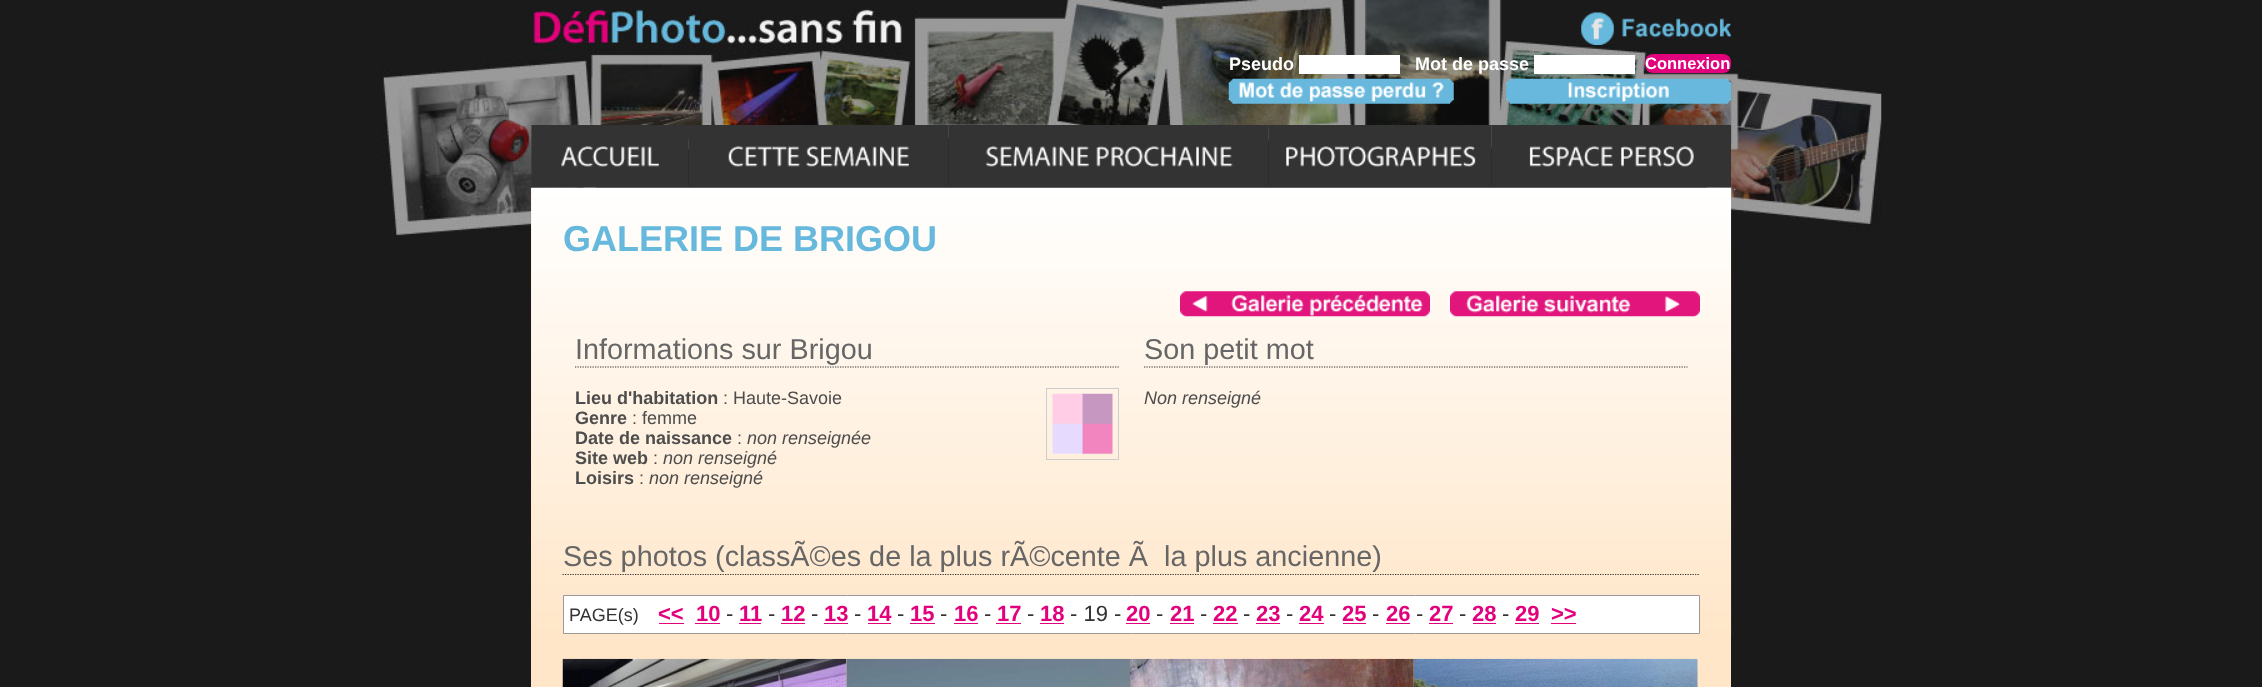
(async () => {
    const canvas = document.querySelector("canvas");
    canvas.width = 2262;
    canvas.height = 687;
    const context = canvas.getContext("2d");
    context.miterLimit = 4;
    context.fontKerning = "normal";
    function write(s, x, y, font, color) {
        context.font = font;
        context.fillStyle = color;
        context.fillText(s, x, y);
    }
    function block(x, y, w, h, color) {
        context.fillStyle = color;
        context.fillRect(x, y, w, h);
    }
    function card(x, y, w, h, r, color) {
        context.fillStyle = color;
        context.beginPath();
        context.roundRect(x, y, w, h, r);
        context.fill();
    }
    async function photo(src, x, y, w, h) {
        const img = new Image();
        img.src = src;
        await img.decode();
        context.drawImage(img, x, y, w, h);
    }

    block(0, 0, 2262, 687, "rgb(26, 26, 26)");
    await photo("media/1.png", 381, 0, 1501, 236);
    await photo("media/2.png", 1581, 12, 151, 33);
    write("Pseudo", 1229, 70, "bold 18px Liberation Sans", "rgb(255, 255, 255)");
    block(1299, 55, 101, 19, "rgb(255, 255, 255)");
    write("Mot de passe", 1415, 70, "bold 18px Liberation Sans", "rgb(255, 255, 255)");
    block(1534, 55, 101, 19, "rgb(255, 255, 255)");
    card(1645, 54, 86, 19, 8, "rgb(227, 0, 124)");
    write("Connexion", 1645, 69, "bold 16.5px Liberation Sans", "rgb(255, 255, 255)");
    await photo("media/3.png", 1228, 78, 226, 26);
    await photo("media/4.png", 1506, 78, 226, 26);
    block(531, 188, 1200, 499, "rgb(255, 230, 200)");
    await photo("media/10.png", 531, 187, 1201, 451);
    await photo("media/5.png", 531, 125, 158, 63);
    await photo("media/6.png", 688, 125, 261, 63);
    await photo("media/7.png", 948, 125, 321, 63);
    await photo("media/8.png", 1268, 125, 224, 63);
    await photo("media/9.png", 1491, 125, 241, 63);
    write("GALERIE DE BRIGOU", 563, 251, "bold 36px Liberation Sans", "rgb(102, 185, 221)");
    await photo("media/11.png", 1180, 291, 250, 26);
    await photo("media/12.png", 1450, 291, 250, 26);
    context.beginPath();
    context.moveTo(575, 367);
    context.lineTo(1119, 367);
    context.strokeStyle = "rgb(51, 51, 51)";
    context.lineWidth = 1.2;
    context.setLineDash([1.25, 1.25]);
    context.stroke();
    write("Informations sur Brigou", 575, 359, "28.8px Liberation Sans", "rgb(102, 102, 102)");
    write("Lieu d'habitation", 575, 404, "bold 18px Liberation Sans", "rgb(77, 77, 77)");
    write(": Haute-Savoie", 723, 404, "18px Liberation Sans", "rgb(77, 77, 77)");
    context.strokeStyle = "rgb(204, 204, 204)";
    context.lineWidth = 1;
    context.setLineDash([]);
    context.strokeRect(1046.5, 388.5, 72, 71);
    await photo("media/13.png", 1052, 393, 61, 61);
    write("Genre", 575, 424, "bold 18px Liberation Sans", "rgb(77, 77, 77)");
    write(": femme", 632, 424, "18px Liberation Sans", "rgb(77, 77, 77)");
    write("Date de naissance", 575, 444, "bold 18px Liberation Sans", "rgb(77, 77, 77)");
    write(":", 737, 444, "18px Liberation Sans", "rgb(77, 77, 77)");
    write("non renseignée", 747, 444, "italic 18px Liberation Sans", "rgb(77, 77, 77)");
    write("Site web", 575, 464, "bold 18px Liberation Sans", "rgb(77, 77, 77)");
    write(":", 653, 464, "18px Liberation Sans", "rgb(77, 77, 77)");
    write("non renseigné", 663, 464, "italic 18px Liberation Sans", "rgb(77, 77, 77)");
    write("Loisirs", 575, 484, "bold 18px Liberation Sans", "rgb(77, 77, 77)");
    write(":", 639, 484, "18px Liberation Sans", "rgb(77, 77, 77)");
    write("non renseigné", 649, 484, "italic 18px Liberation Sans", "rgb(77, 77, 77)");
    context.beginPath();
    context.moveTo(1144, 367);
    context.lineTo(1687.5, 367);
    context.strokeStyle = "rgb(51, 51, 51)";
    context.lineWidth = 1.2;
    context.setLineDash([1.25, 1.25]);
    context.stroke();
    write("Son petit mot", 1144, 359, "28.8px Liberation Sans", "rgb(102, 102, 102)");
    write("Non renseigné", 1144, 404, "italic 18px Liberation Sans", "rgb(77, 77, 77)");
    context.beginPath();
    context.moveTo(562.5, 574.5);
    context.lineTo(1700, 574.5);
    context.stroke();
    write("Ses photos (classÃ©es de la plus rÃ©cente Ã  la plus ancienne)", 563, 566, "28.8px Liberation Sans", "rgb(102, 102, 102)");
    context.fillStyle = "rgb(255, 255, 255)";
    context.beginPath();
    context.rect(563.5, 595.5, 1136, 38);
    context.fill();
    context.strokeStyle = "rgb(153, 153, 153)";
    context.lineWidth = 1;
    context.setLineDash([]);
    context.stroke();
    write("PAGE(s)", 569, 621, "18px Liberation Sans", "rgb(51, 51, 51)");
    write("<<", 658, 621, "bold 22px Liberation Sans", "rgb(227, 0, 124)");
    block(659, 623, 25, 1, "rgb(227, 0, 124)");
    write("10", 696, 621, "bold 22px Liberation Sans", "rgb(227, 0, 124)");
    block(695, 623, 25, 1, "rgb(227, 0, 124)");
    write("-", 726, 621, "22px Liberation Sans", "rgb(51, 51, 51)");
    write("11", 739, 621, "bold 22px Liberation Sans", "rgb(227, 0, 124)");
    block(739, 623, 22, 1, "rgb(227, 0, 124)");
    write("-", 768, 621, "22px Liberation Sans", "rgb(51, 51, 51)");
    write("12", 781, 621, "bold 22px Liberation Sans", "rgb(227, 0, 124)");
    block(781, 623, 24, 1, "rgb(227, 0, 124)");
    write("-", 811, 621, "22px Liberation Sans", "rgb(51, 51, 51)");
    write("13", 824, 621, "bold 22px Liberation Sans", "rgb(227, 0, 124)");
    block(824, 623, 24, 1, "rgb(227, 0, 124)");
    write("-", 854, 621, "22px Liberation Sans", "rgb(51, 51, 51)");
    write("14", 867, 621, "bold 22px Liberation Sans", "rgb(227, 0, 124)");
    block(868, 623, 23, 1, "rgb(227, 0, 124)");
    write("-", 897, 621, "22px Liberation Sans", "rgb(51, 51, 51)");
    write("15", 910, 621, "bold 22px Liberation Sans", "rgb(227, 0, 124)");
    block(910, 623, 25, 1, "rgb(227, 0, 124)");
    write("-", 940, 621, "22px Liberation Sans", "rgb(51, 51, 51)");
    write("16", 954, 621, "bold 22px Liberation Sans", "rgb(227, 0, 124)");
    block(954, 623, 24, 1, "rgb(227, 0, 124)");
    write("-", 984, 621, "22px Liberation Sans", "rgb(51, 51, 51)");
    write("17", 997, 621, "bold 22px Liberation Sans", "rgb(227, 0, 124)");
    block(996, 623, 25, 1, "rgb(227, 0, 124)");
    write("-", 1027, 621, "22px Liberation Sans", "rgb(51, 51, 51)");
    write("18", 1040, 621, "bold 22px Liberation Sans", "rgb(227, 0, 124)");
    block(1040, 623, 24, 1, "rgb(227, 0, 124)");
    write("- 19 -", 1070, 621, "22px Liberation Sans", "rgb(51, 51, 51)");
    write("20", 1126, 621, "bold 22px Liberation Sans", "rgb(227, 0, 124)");
    block(1126, 623, 24, 1, "rgb(227, 0, 124)");
    write("-", 1156, 621, "22px Liberation Sans", "rgb(51, 51, 51)");
    write("21", 1170, 621, "bold 22px Liberation Sans", "rgb(227, 0, 124)");
    block(1170, 623, 24, 1, "rgb(227, 0, 124)");
    write("-", 1200, 621, "22px Liberation Sans", "rgb(51, 51, 51)");
    write("22", 1213, 621, "bold 22px Liberation Sans", "rgb(227, 0, 124)");
    block(1213, 623, 25, 1, "rgb(227, 0, 124)");
    write("-", 1243, 621, "22px Liberation Sans", "rgb(51, 51, 51)");
    write("23", 1256, 621, "bold 22px Liberation Sans", "rgb(227, 0, 124)");
    block(1256, 623, 24, 1, "rgb(227, 0, 124)");
    write("-", 1286, 621, "22px Liberation Sans", "rgb(51, 51, 51)");
    write("24", 1299, 621, "bold 22px Liberation Sans", "rgb(227, 0, 124)");
    block(1299, 623, 25, 1, "rgb(227, 0, 124)");
    write("-", 1329, 621, "22px Liberation Sans", "rgb(51, 51, 51)");
    write("25", 1342, 621, "bold 22px Liberation Sans", "rgb(227, 0, 124)");
    block(1343, 623, 23, 1, "rgb(227, 0, 124)");
    write("-", 1372, 621, "22px Liberation Sans", "rgb(51, 51, 51)");
    write("26", 1386, 621, "bold 22px Liberation Sans", "rgb(227, 0, 124)");
    block(1386, 623, 24, 1, "rgb(227, 0, 124)");
    write("-", 1416, 621, "22px Liberation Sans", "rgb(51, 51, 51)");
    write("27", 1429, 621, "bold 22px Liberation Sans", "rgb(227, 0, 124)");
    block(1429, 623, 24, 1, "rgb(227, 0, 124)");
    write("-", 1459, 621, "22px Liberation Sans", "rgb(51, 51, 51)");
    write("28", 1472, 621, "bold 22px Liberation Sans", "rgb(227, 0, 124)");
    block(1473, 623, 23, 1, "rgb(227, 0, 124)");
    write("-", 1502, 621, "22px Liberation Sans", "rgb(51, 51, 51)");
    write("29", 1515, 621, "bold 22px Liberation Sans", "rgb(227, 0, 124)");
    block(1515, 623, 24, 1, "rgb(227, 0, 124)");
    write(">>", 1551, 621, "bold 22px Liberation Sans", "rgb(227, 0, 124)");
    block(1551, 623, 25, 1, "rgb(227, 0, 124)");
    await photo("media/14.png", 562, 658, 285, 29);
    await photo("media/15.png", 846, 658, 284, 29);
    await photo("media/16.png", 1130, 658, 284, 29);
    await photo("media/17.png", 1413, 658, 285, 29);
})();
